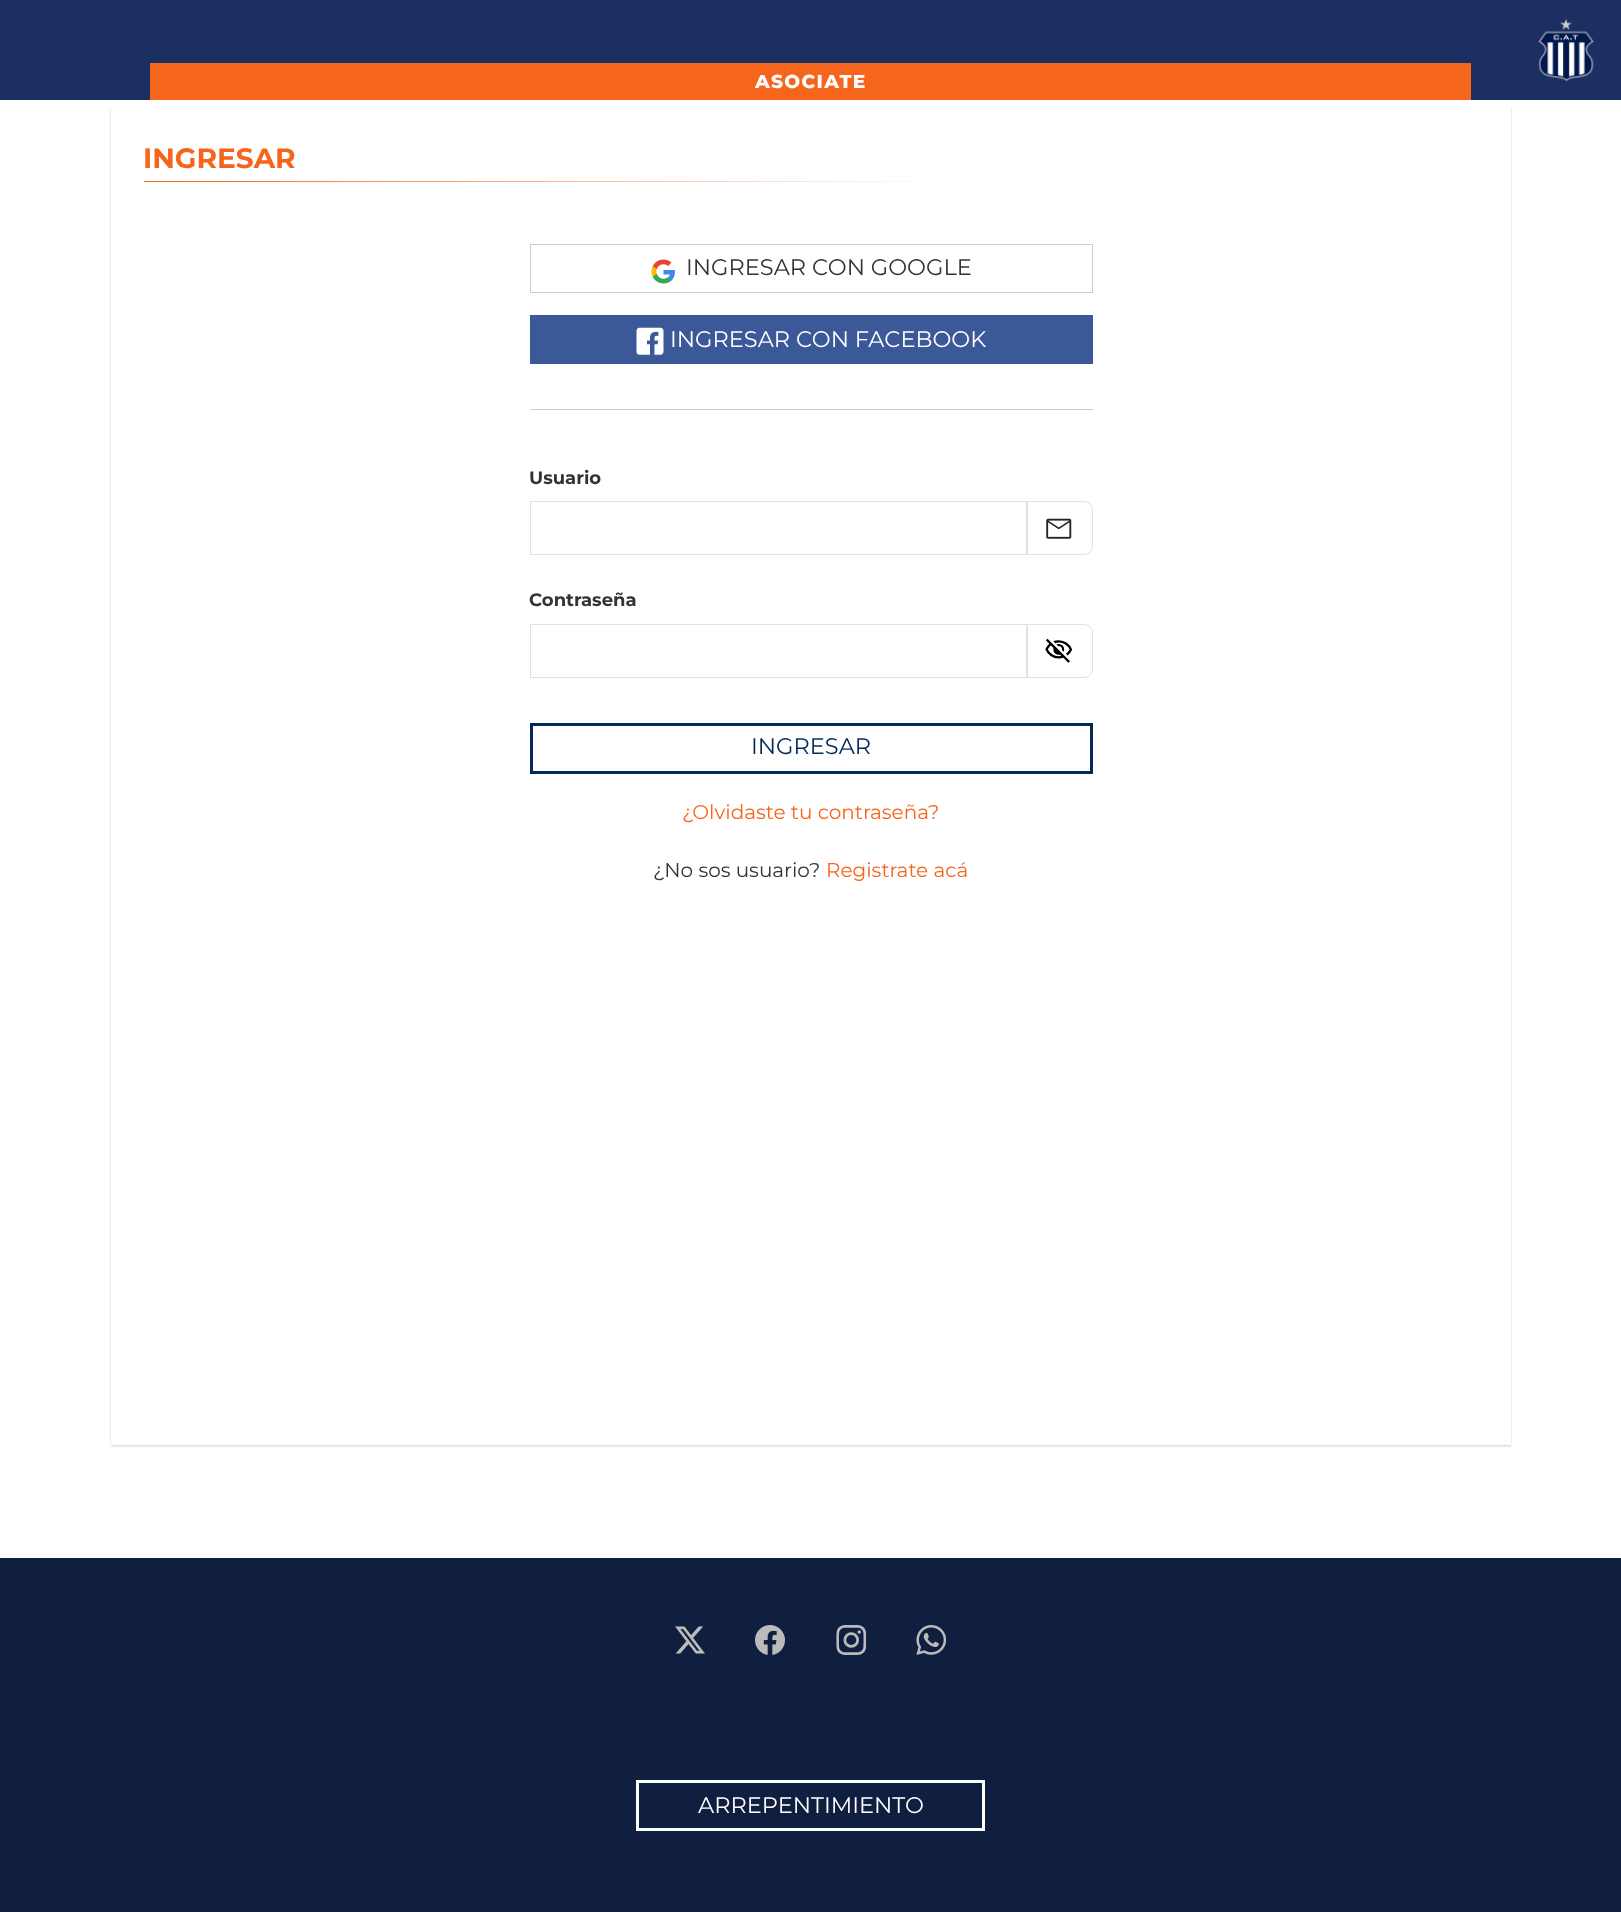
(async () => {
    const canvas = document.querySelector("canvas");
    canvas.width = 1621;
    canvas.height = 1912;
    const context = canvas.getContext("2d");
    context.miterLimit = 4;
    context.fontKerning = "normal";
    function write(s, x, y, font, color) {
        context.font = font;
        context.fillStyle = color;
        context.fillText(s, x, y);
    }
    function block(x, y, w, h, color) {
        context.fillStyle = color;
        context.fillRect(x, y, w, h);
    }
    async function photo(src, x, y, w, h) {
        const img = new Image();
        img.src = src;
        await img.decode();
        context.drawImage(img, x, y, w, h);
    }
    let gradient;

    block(0, 0, 1621, 1912, "rgb(255, 255, 255)");
    block(0, 0, 1621, 100, "rgb(27, 47, 98)");
    block(150, 63, 1321, 37, "rgb(245, 101, 28)");
    context.letterSpacing = "1.25px";
    write("ASOCIATE", 755, 88, "100 18.75px 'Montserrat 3'", "rgb(255, 255, 255)");
    await photo("media/1.png", 1538, 18, 56, 64);
    context.save();
    context.beginPath();
    context.moveTo(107, 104);
    context.lineTo(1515, 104);
    context.lineTo(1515, 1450);
    context.lineTo(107, 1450);
    context.closePath();
    context.moveTo(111, 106);
    context.lineTo(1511, 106);
    context.lineTo(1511, 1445);
    context.lineTo(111, 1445);
    context.closePath();
    context.clip("evenodd");
    context.fillStyle = "rgba(0, 0, 0, 0.2)";
    context.filter = "blur(1px)";
    context.beginPath();
    context.rect(111, 108, 1400, 1338);
    context.fill();
    context.filter = "none";
    context.restore();
    context.letterSpacing = "0px";
    write("INGRESAR", 143, 168, "100 28px Montserrat", "rgb(245, 101, 28)");
    gradient = context.createLinearGradient(144, 182, 1479, 182);
    gradient.addColorStop(0, "rgb(245, 101, 28)");
    gradient.addColorStop(0.6, "rgb(255, 255, 255)");
    context.fillStyle = gradient;
    context.fillRect(144, 181, 792, 1);
    context.strokeStyle = "rgb(204, 204, 204)";
    context.strokeRect(530.5, 244.5, 562, 48);
    await photo("media/2.png", 651, 259, 24, 25);
    write("INGRESAR CON GOOGLE", 686, 275, "100 22.5px 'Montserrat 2'", "rgb(51, 51, 51)");
    block(530, 315, 563, 49, "rgb(59, 89, 152)");
    await photo("media/3.png", 636, 327, 28, 28);
    write("INGRESAR CON FACEBOOK", 670, 347, "100 22.5px 'Montserrat 2'", "rgb(255, 255, 255)");
    block(530, 409, 563, 1, "rgb(204, 204, 204)");
    write("Usuario", 529, 484, "100 18px Montserrat", "rgb(51, 51, 51)");
    context.beginPath();
    context.roundRect(1026.5, 501.5, 66, 53, [0, 8.5, 8.5, 0]);
    context.strokeStyle = "rgb(222, 226, 230)";
    context.stroke();
    context.strokeRect(530.5, 501.5, 497, 53);
    await photo("media/4.png", 1046, 518, 26, 21);
    write("Contraseña", 529, 606, "100 18px Montserrat", "rgb(51, 51, 51)");
    context.beginPath();
    context.roundRect(1026.5, 624.5, 66, 53, [0, 8.5, 8.5, 0]);
    context.stroke();
    context.strokeRect(530.5, 624.5, 497, 53);
    await photo("media/5.png", 1045, 638, 28, 25);
    context.strokeStyle = "rgb(3, 40, 89)";
    context.lineWidth = 3;
    context.strokeRect(531.5, 724.5, 560, 48);
    write("INGRESAR", 751, 754, "100 22.5px 'Montserrat 2'", "rgb(3, 40, 89)");
    write("¿Olvidaste tu contraseña?", 682, 819, "100 20px 'Montserrat 2'", "rgb(245, 101, 28)");
    write("¿No sos usuario?", 653, 877, "100 20px 'Montserrat 2'", "rgb(51, 51, 51)");
    write("Registrate acá", 826, 877, "100 20px 'Montserrat 2'", "rgb(245, 101, 28)");
    block(0, 1558, 1621, 354, "rgb(16, 30, 63)");
    await photo("media/6.png", 675, 1626, 30, 28);
    await photo("media/7.png", 755, 1625, 30, 30);
    await photo("media/8.png", 836, 1625, 31, 30);
    await photo("media/9.png", 916, 1625, 30, 30);
    context.strokeStyle = "rgb(255, 255, 255)";
    context.strokeRect(637.5, 1781.5, 346, 48);
    write("ARREPENTIMIENTO", 698, 1813, "100 22.5px 'Montserrat 2'", "rgb(255, 255, 255)");
})();
